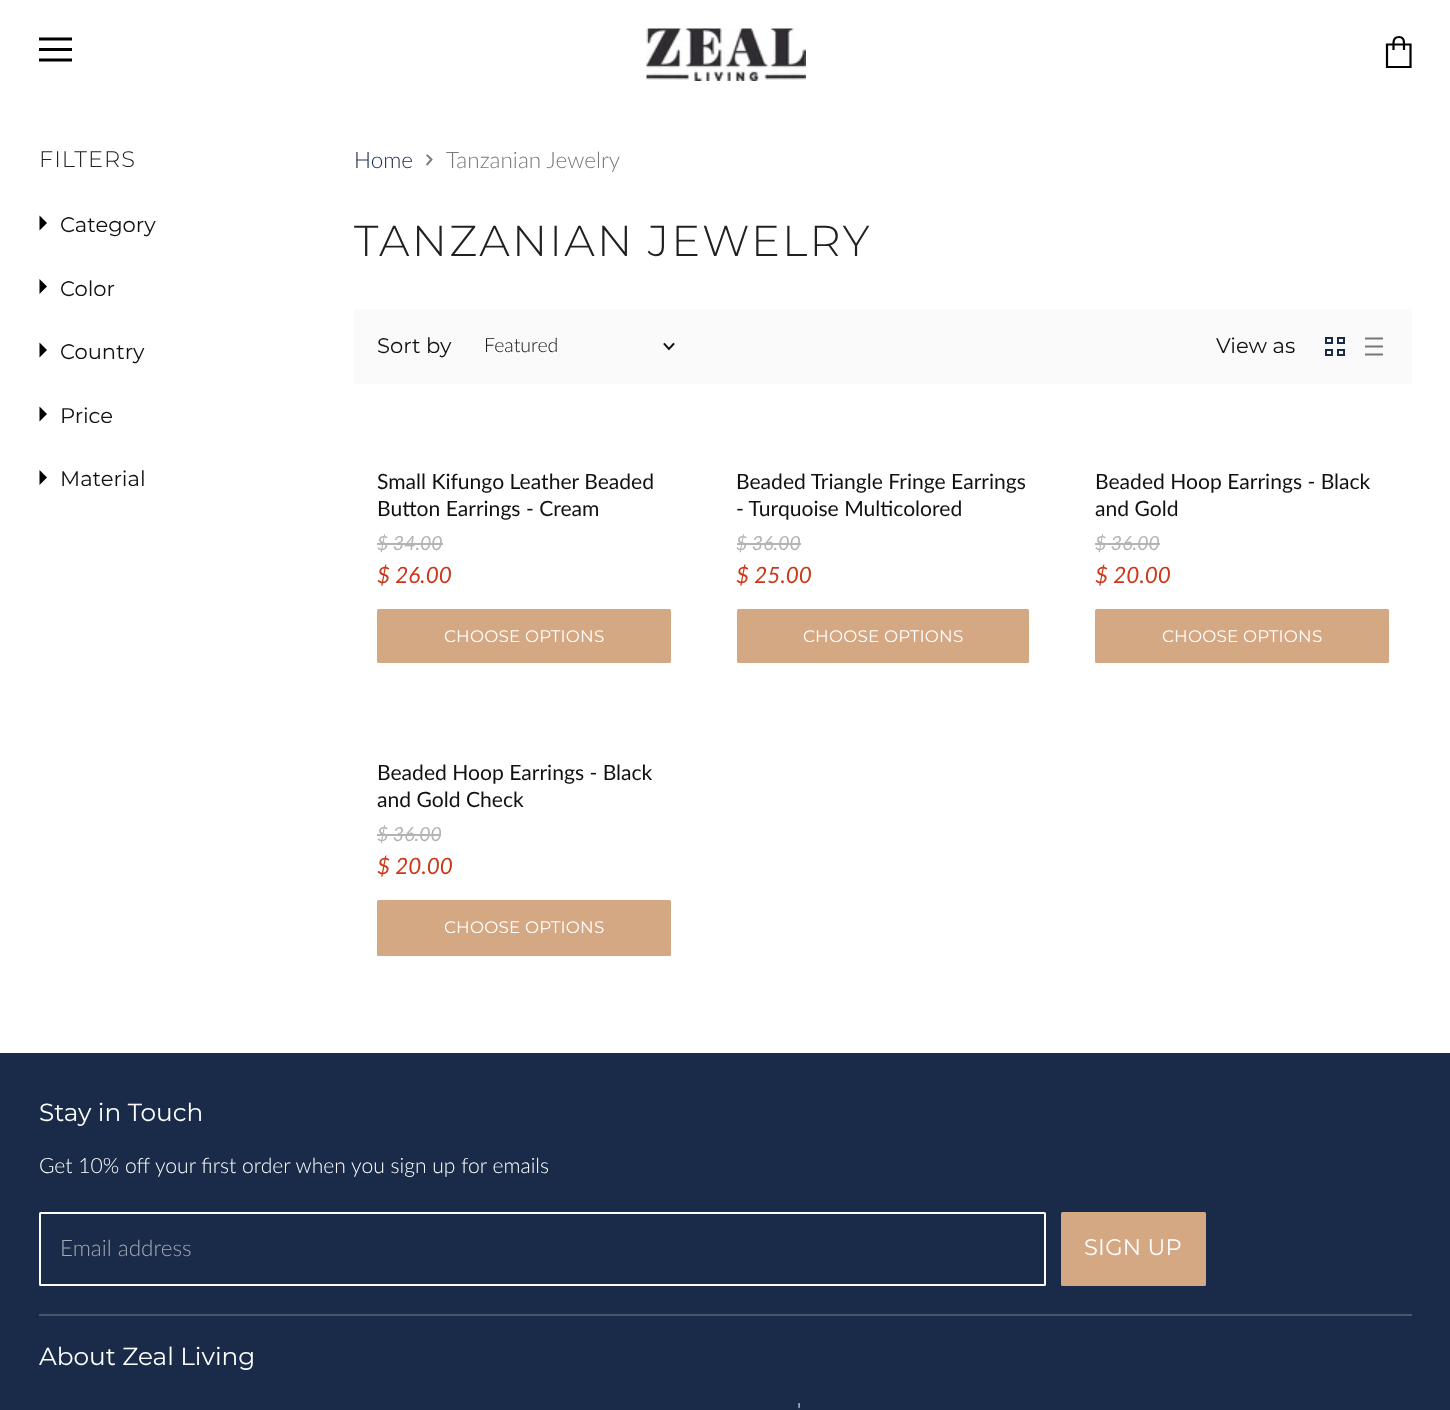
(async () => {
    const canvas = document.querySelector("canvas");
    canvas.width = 1450;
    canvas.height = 1410;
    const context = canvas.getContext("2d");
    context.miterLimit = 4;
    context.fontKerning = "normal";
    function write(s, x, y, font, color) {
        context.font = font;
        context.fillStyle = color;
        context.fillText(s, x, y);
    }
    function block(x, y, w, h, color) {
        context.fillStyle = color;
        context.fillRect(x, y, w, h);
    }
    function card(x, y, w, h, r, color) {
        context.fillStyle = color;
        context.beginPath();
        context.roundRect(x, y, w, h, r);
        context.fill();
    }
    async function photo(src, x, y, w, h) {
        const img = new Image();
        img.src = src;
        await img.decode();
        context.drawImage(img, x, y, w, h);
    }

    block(0, 0, 1450, 1410, "rgb(255, 255, 255)");
    context.beginPath();
    context.moveTo(70.5, 39);
    context.lineTo(40.5, 39);
    context.strokeStyle = "rgb(0, 0, 0)";
    context.lineWidth = 3;
    context.lineCap = "square";
    context.lineJoin = "round";
    context.stroke();
    block(39, 48, 33, 3, "rgb(0, 0, 0)");
    context.beginPath();
    context.moveTo(70.5, 60);
    context.lineTo(40.5, 60);
    context.stroke();
    await photo("media/1.png", 646, 28, 160, 53);
    context.beginPath();
    context.moveTo(1387, 44.5);
    context.lineTo(1410.5, 44.5);
    context.lineTo(1410.5, 67);
    context.lineTo(1387, 67);
    context.closePath();
    context.moveTo(1404, 50);
    context.lineTo(1404, 43);
    context.bezierCurveTo(1404, 38.5, 1401.5, 37, 1399, 37);
    context.bezierCurveTo(1396, 37, 1393.5, 38.5, 1393.5, 43);
    context.lineTo(1393.5, 50);
    context.lineWidth = 2.2;
    context.lineCap = "butt";
    context.lineJoin = "miter";
    context.stroke();
    context.letterSpacing = "1px";
    write("FILTERS", 39, 167, "300 22.5px Montserrat", "rgb(33, 33, 33)");
    context.fillStyle = "rgb(0, 0, 0)";
    context.beginPath();
    context.moveTo(39.5, 230.5);
    context.lineTo(39.5, 215.5);
    context.lineTo(47, 223);
    context.closePath();
    context.fill();
    context.letterSpacing = "0px";
    write("Category", 60, 232, "21.1px Montserrat", "rgb(17, 17, 17)");
    context.fillStyle = "rgb(0, 0, 0)";
    context.beginPath();
    context.moveTo(39.5, 294);
    context.lineTo(39.5, 279);
    context.lineTo(47, 286.5);
    context.closePath();
    context.fill();
    write("Color", 60, 296, "21.1px Montserrat", "rgb(17, 17, 17)");
    context.fillStyle = "rgb(0, 0, 0)";
    context.beginPath();
    context.moveTo(39.5, 357.5);
    context.lineTo(39.5, 342.5);
    context.lineTo(47, 350);
    context.closePath();
    context.fill();
    write("Country", 60, 359, "21.1px Montserrat", "rgb(17, 17, 17)");
    context.fillStyle = "rgb(0, 0, 0)";
    context.beginPath();
    context.moveTo(39.5, 421.5);
    context.lineTo(39.5, 406.5);
    context.lineTo(47, 414);
    context.closePath();
    context.fill();
    write("Price", 60, 423, "21.1px Montserrat", "rgb(17, 17, 17)");
    context.fillStyle = "rgb(0, 0, 0)";
    context.beginPath();
    context.moveTo(39.5, 485);
    context.lineTo(39.5, 470);
    context.lineTo(47, 477.5);
    context.closePath();
    context.fill();
    write("Material", 60, 486, "21.1px Montserrat", "rgb(17, 17, 17)");
    write("Home", 354, 168, "300 22.5px Lato", "rgb(25, 43, 72)");
    context.save();
    context.beginPath();
    context.moveTo(426, 166.5);
    context.lineTo(426, 154.5);
    context.lineTo(433.5, 154.5);
    context.lineTo(433.5, 166.5);
    context.closePath();
    context.clip();
    context.beginPath();
    context.moveTo(426.5, 165);
    context.lineTo(431.5, 159.5);
    context.lineTo(426.5, 154.5);
    context.strokeStyle = "rgb(124, 120, 115)";
    context.lineWidth = 1.9;
    context.stroke();
    context.restore();
    write("Tanzanian Jewelry", 446, 168, "300 22.5px Lato", "rgb(124, 120, 115)");
    context.letterSpacing = "2.2px";
    write("TANZANIAN JEWELRY", 354, 256, "300 43.25px Montserrat", "rgb(33, 33, 33)");
    card(354, 309, 1058, 75, 1, "rgb(250, 250, 250)");
    context.letterSpacing = "0px";
    write("Sort by", 377, 353, "21.1px Montserrat", "rgb(17, 17, 17)");
    write("Featured", 484, 352, "300 19.5px Lato", "rgb(17, 17, 17)");
    context.beginPath();
    context.moveTo(669, 349);
    context.lineTo(673.5, 344);
    context.moveTo(669, 349);
    context.lineTo(664.5, 344);
    context.strokeStyle = "rgb(17, 17, 17)";
    context.lineWidth = 1.9;
    context.lineCap = "square";
    context.stroke();
    write("View as", 1216, 353, "21.1px Montserrat", "rgb(17, 17, 17)");
    context.strokeStyle = "rgb(25, 43, 72)";
    context.lineWidth = 2;
    context.strokeRect(1326, 338, 6, 5);
    context.strokeRect(1338, 338, 6, 5);
    context.strokeRect(1326, 350, 6, 5);
    context.strokeRect(1338, 350, 6, 5);
    context.beginPath();
    context.moveTo(1365, 338.5);
    context.lineTo(1383, 338.5);
    context.moveTo(1365, 354.5);
    context.lineTo(1383, 354.5);
    context.moveTo(1365, 346.5);
    context.lineTo(1383, 346.5);
    context.strokeStyle = "rgb(119, 119, 119)";
    context.lineWidth = 1.9;
    context.lineCap = "butt";
    context.lineJoin = "round";
    context.stroke();
    write("Small Kifungo Leather Beaded", 377, 489, "21.1px Lato", "rgb(17, 17, 17)");
    write("Button Earrings - Cream", 377, 516, "21.1px Lato", "rgb(17, 17, 17)");
    write("$ 34.00", 377, 550, "italic 19.5px Lato", "rgb(180, 180, 180)");
    block(377, 543, 66, 2, "rgb(180, 180, 180)");
    write("$ 26.00", 377, 583, "italic 22.5px Lato", "rgb(205, 55, 25)");
    context.fillStyle = "rgb(213, 168, 132)";
    context.beginPath();
    context.roundRect(378, 610, 292, 52, 0.5);
    context.fill();
    context.strokeStyle = "rgb(213, 168, 132)";
    context.lineWidth = 2;
    context.lineJoin = "miter";
    context.stroke();
    context.letterSpacing = "0.2px";
    write("CHOOSE OPTIONS", 444, 642, "16.75px Montserrat", "rgb(255, 255, 255)");
    context.letterSpacing = "0px";
    write("Beaded Triangle Fringe Earrings", 736, 489, "21.1px Lato", "rgb(17, 17, 17)");
    write("- Turquoise Multicolored", 736, 516, "21.1px Lato", "rgb(17, 17, 17)");
    write("$ 36.00", 736, 550, "italic 19.5px Lato", "rgb(180, 180, 180)");
    block(737, 543, 64, 2, "rgb(180, 180, 180)");
    write("$ 25.00", 736, 583, "italic 22.5px Lato", "rgb(205, 55, 25)");
    context.fillStyle = "rgb(213, 168, 132)";
    context.beginPath();
    context.roundRect(738, 610, 290, 52, 0.5);
    context.fill();
    context.stroke();
    context.letterSpacing = "0.2px";
    write("CHOOSE OPTIONS", 803, 642, "16.75px Montserrat", "rgb(255, 255, 255)");
    context.letterSpacing = "0px";
    write("Beaded Hoop Earrings - Black", 1095, 489, "21.1px Lato", "rgb(17, 17, 17)");
    write("and Gold", 1095, 516, "21.1px Lato", "rgb(17, 17, 17)");
    write("$ 36.00", 1095, 550, "italic 19.5px Lato", "rgb(180, 180, 180)");
    block(1095, 543, 65, 2, "rgb(180, 180, 180)");
    write("$ 20.00", 1095, 583, "italic 22.5px Lato", "rgb(205, 55, 25)");
    context.fillStyle = "rgb(213, 168, 132)";
    context.beginPath();
    context.roundRect(1096, 610, 292, 52, 0.5);
    context.fill();
    context.stroke();
    context.letterSpacing = "0.2px";
    write("CHOOSE OPTIONS", 1162, 642, "16.75px Montserrat", "rgb(255, 255, 255)");
    context.letterSpacing = "0px";
    write("Beaded Hoop Earrings - Black", 377, 780, "21.1px Lato", "rgb(17, 17, 17)");
    write("and Gold Check", 377, 807, "21.1px Lato", "rgb(17, 17, 17)");
    write("$ 36.00", 377, 841, "italic 19.5px Lato", "rgb(180, 180, 180)");
    block(377, 834, 64, 2, "rgb(180, 180, 180)");
    write("$ 20.00", 377, 874, "italic 22.5px Lato", "rgb(205, 55, 25)");
    context.fillStyle = "rgb(213, 168, 132)";
    context.beginPath();
    context.roundRect(378, 901, 292, 54, 0.5);
    context.fill();
    context.stroke();
    context.letterSpacing = "0.2px";
    write("CHOOSE OPTIONS", 444, 933, "16.75px Montserrat", "rgb(255, 255, 255)");
    block(0, 1053, 1450, 357, "rgb(25, 43, 72)");
    block(39, 1314, 1373, 2, "rgb(71, 85, 109)");
    context.letterSpacing = "0px";
    write("Stay in Touch", 39, 1121, "24.75px Montserrat", "rgb(255, 255, 255)");
    write("Get 10% off your first order when you sign up for emails", 39, 1173, "300 21.1px Lato", "rgb(255, 255, 255)");
    context.beginPath();
    context.roundRect(40, 1213, 1005, 72, 0.5);
    context.strokeStyle = "rgb(255, 255, 255)";
    context.stroke();
    write("Email address", 60, 1256, "300 22.5px Lato", "rgb(163, 170, 182)");
    context.fillStyle = "rgb(213, 168, 132)";
    context.beginPath();
    context.roundRect(1062, 1213, 143, 72, 0.5);
    context.fill();
    context.strokeStyle = "rgb(213, 168, 132)";
    context.stroke();
    context.letterSpacing = "0.25px";
    write("SIGN UP", 1084, 1255, "22.5px Montserrat", "rgb(255, 255, 255)");
    context.letterSpacing = "0px";
    write("About Zeal Living", 39, 1365, "24.75px Montserrat", "rgb(255, 255, 255)");
    write("'", 797, 1418, "300 21.1px Lato", "rgb(255, 255, 255)");
})();
